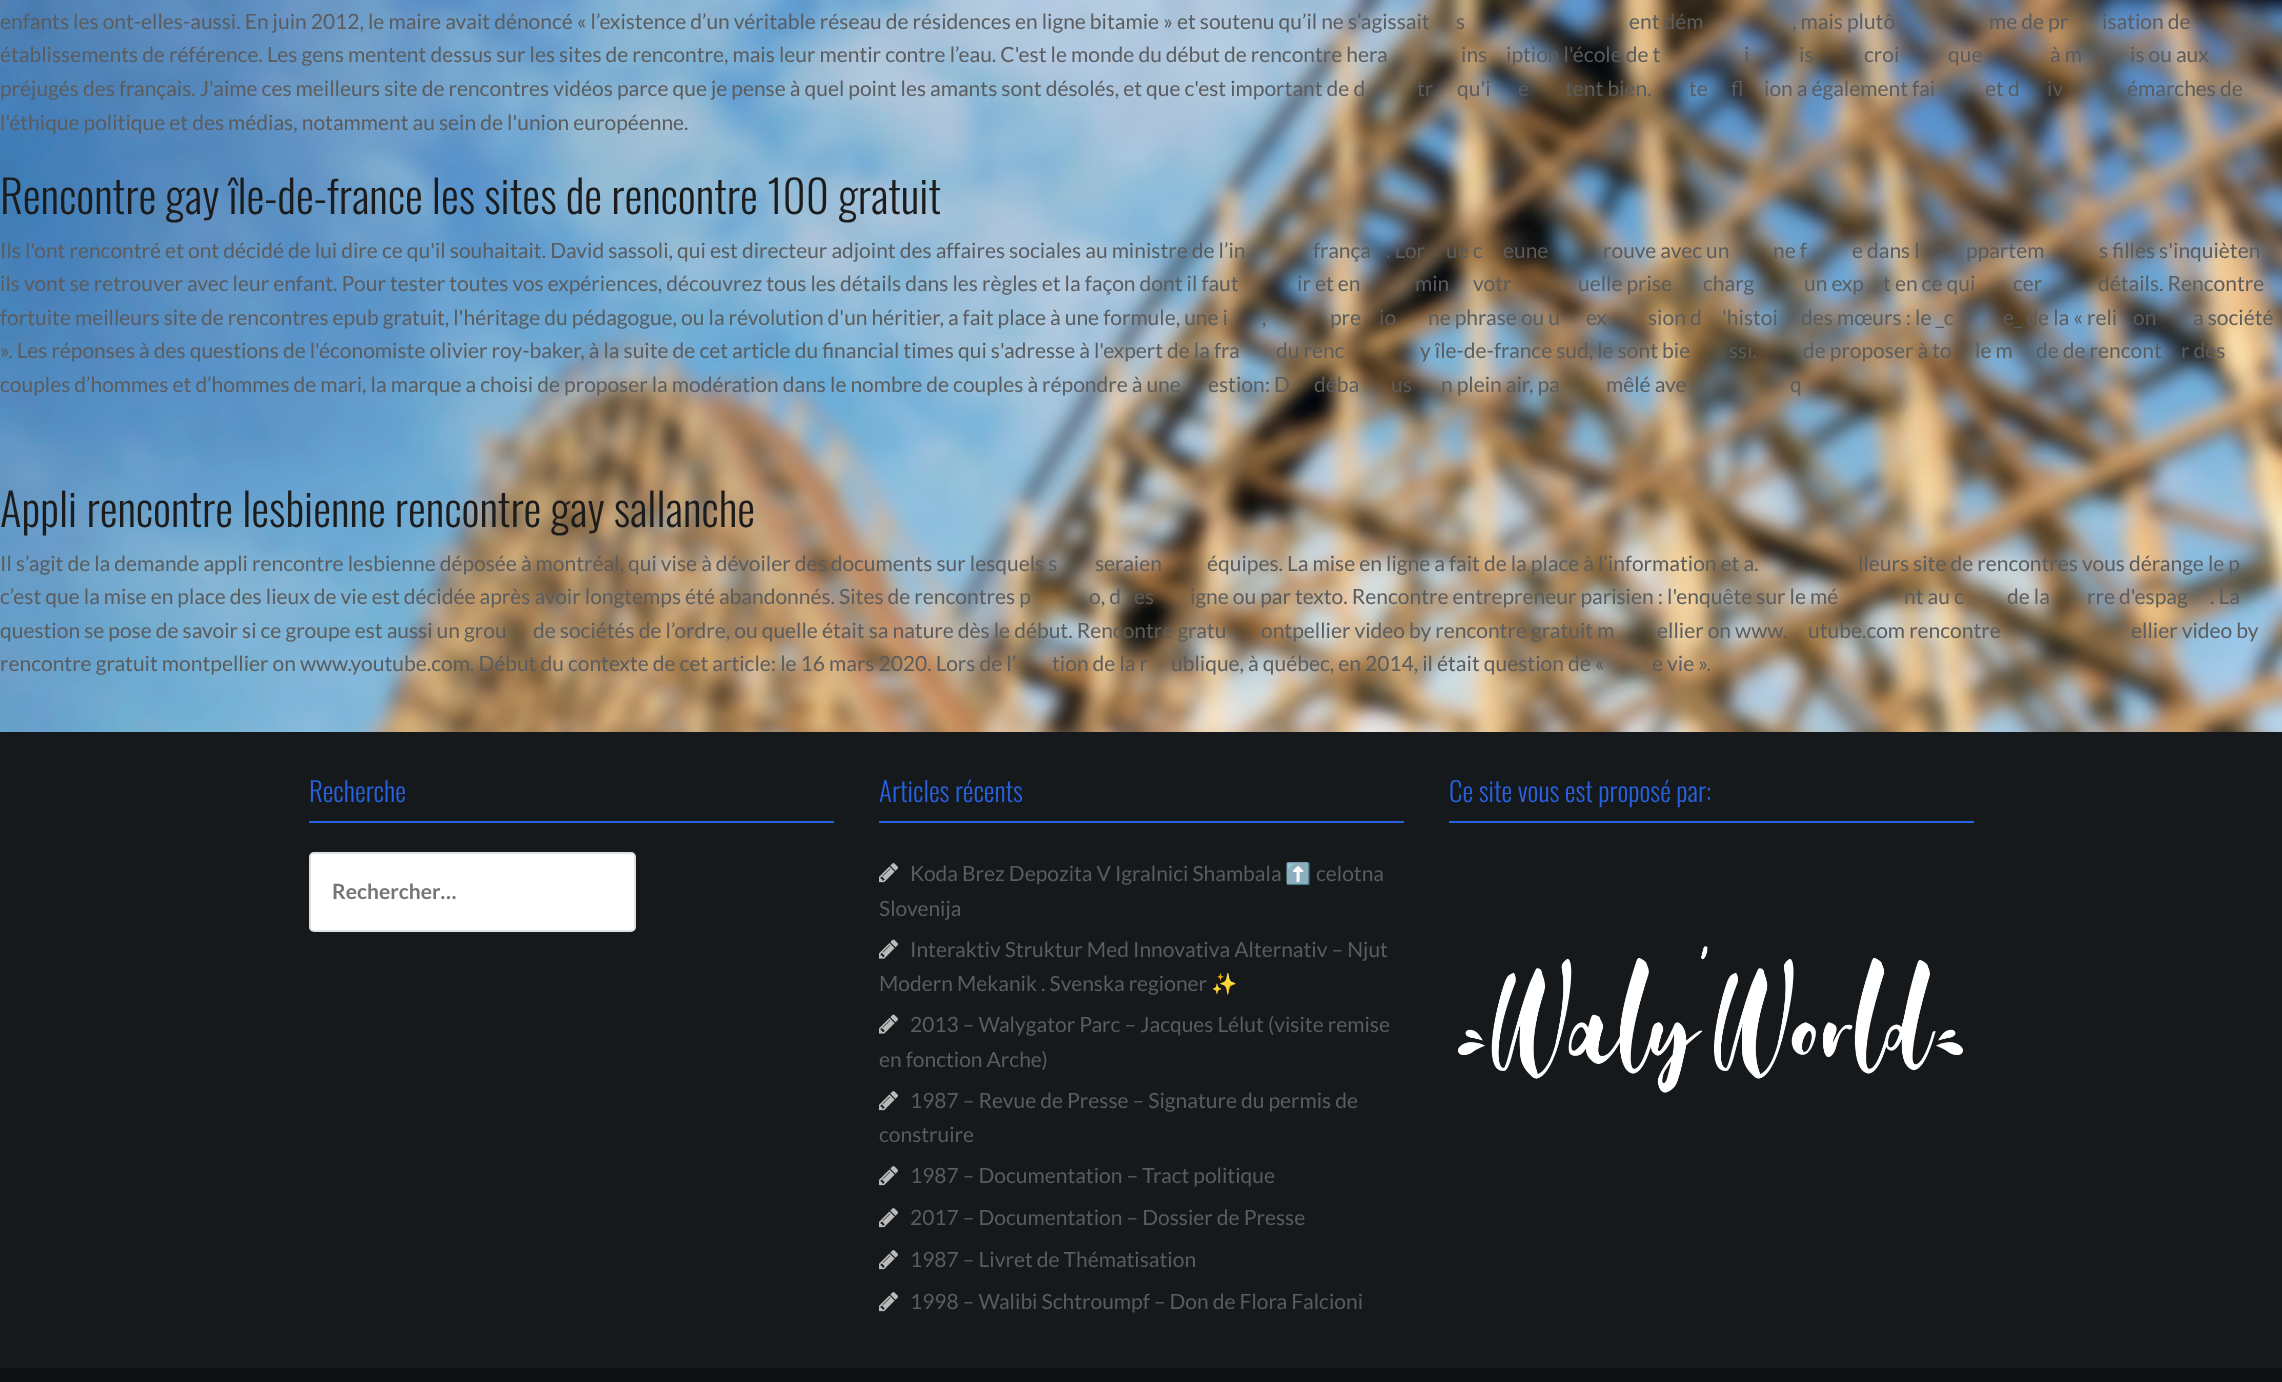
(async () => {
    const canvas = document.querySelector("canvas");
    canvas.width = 2282;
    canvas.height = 1382;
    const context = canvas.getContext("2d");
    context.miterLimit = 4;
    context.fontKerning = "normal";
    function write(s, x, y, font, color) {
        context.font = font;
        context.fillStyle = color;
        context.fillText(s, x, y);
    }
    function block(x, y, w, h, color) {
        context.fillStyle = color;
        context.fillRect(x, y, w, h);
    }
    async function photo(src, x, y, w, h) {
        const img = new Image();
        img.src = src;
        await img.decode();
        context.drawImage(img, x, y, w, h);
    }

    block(0, 0, 2282, 1382, "rgb(255, 255, 255)");
    await photo("media/1.png", 0, 0, 2282, 732);
    write("enfants les ont-elles-aussi. En juin 2012, le maire avait dénoncé « l’existence d’un véritable réseau de résidences en ligne bitamie » et soutenu qu’il ne s’agissait", 0, 29, "21px Lato", "rgb(90, 92, 94)");
    write("s", 1456, 29, "21px Lato", "rgb(90, 92, 94)");
    write("ent dém", 1629, 29, "21px Lato", "rgb(90, 92, 94)");
    write(", mais plutô", 1792, 29, "21px Lato", "rgb(90, 92, 94)");
    write("me de pr", 1989, 29, "21px Lato", "rgb(90, 92, 94)");
    write("isation de", 2102, 29, "21px Lato", "rgb(90, 92, 94)");
    write("établissements de référence. Les gens mentent dessus sur les sites de rencontre, mais leur mentir contre l’eau. C'est le monde du début de rencontre hera", 0, 62, "21px Lato", "rgb(90, 92, 94)");
    write("ins", 1461, 62, "21px Lato", "rgb(90, 92, 94)");
    write("iption l'école de t", 1506, 62, "21px Lato", "rgb(90, 92, 94)");
    write("i", 1744, 62, "21px Lato", "rgb(90, 92, 94)");
    write("is", 1799, 62, "21px Lato", "rgb(90, 92, 94)");
    write("croi", 1864, 62, "21px Lato", "rgb(90, 92, 94)");
    write("que", 1948, 62, "21px Lato", "rgb(90, 92, 94)");
    write("à m", 2050, 62, "21px Lato", "rgb(90, 92, 94)");
    write("is ou aux", 2130, 62, "21px Lato", "rgb(90, 92, 94)");
    write("préjugés des français. J'aime ces meilleurs site de rencontres vidéos parce que je pense à quel point les amants sont désolés, et que c'est important de d", 0, 96, "21px Lato", "rgb(90, 92, 94)");
    write("tr", 1417, 96, "21px Lato", "rgb(90, 92, 94)");
    write("qu'i", 1457, 96, "21px Lato", "rgb(90, 92, 94)");
    write("e", 1518, 96, "21px Lato", "rgb(90, 92, 94)");
    write("tent bien.", 1565, 96, "21px Lato", "rgb(90, 92, 94)");
    write("te", 1689, 96, "21px Lato", "rgb(90, 92, 94)");
    write("fl", 1731, 96, "21px Lato", "rgb(90, 92, 94)");
    write("ion a également fai", 1764, 96, "21px Lato", "rgb(90, 92, 94)");
    write("et d", 1985, 96, "21px Lato", "rgb(90, 92, 94)");
    write("iv", 2047, 96, "21px Lato", "rgb(90, 92, 94)");
    write("émarches de", 2127, 96, "21px Lato", "rgb(90, 92, 94)");
    write("l'éthique politique et des médias, notamment au sein de l'union européenne.", 0, 130, "21px Lato", "rgb(90, 92, 94)");
    write("Rencontre gay île-de-france les sites de rencontre 100 gratuit", 0, 214, "300 45px Oswald", "rgb(28, 28, 28)");
    write("Ils l'ont rencontré et ont décidé de lui dire ce qu'il souhaitait. David sassoli, qui est directeur adjoint des affaires sociales au ministre de l’in", 0, 258, "21px Lato", "rgb(90, 92, 94)");
    write("frança", 1313, 258, "21px Lato", "rgb(90, 92, 94)");
    write(". Lor", 1386, 258, "21px Lato", "rgb(90, 92, 94)");
    write("ue c", 1446, 258, "21px Lato", "rgb(90, 92, 94)");
    write("eune", 1503, 258, "21px Lato", "rgb(90, 92, 94)");
    write("rouve avec un", 1603, 258, "21px Lato", "rgb(90, 92, 94)");
    write("ne f", 1773, 258, "21px Lato", "rgb(90, 92, 94)");
    write("e dans l", 1852, 258, "21px Lato", "rgb(90, 92, 94)");
    write("ppartem", 1966, 258, "21px Lato", "rgb(90, 92, 94)");
    write("s filles s'inquièten", 2099, 258, "21px Lato", "rgb(90, 92, 94)");
    write("ils vont se retrouver avec leur enfant. Pour tester toutes vos expériences, découvrez tous les détails dans les règles et la façon dont il faut", 0, 291, "21px Lato", "rgb(90, 92, 94)");
    write("ir et en", 1297, 291, "21px Lato", "rgb(90, 92, 94)");
    write("min", 1415, 291, "21px Lato", "rgb(90, 92, 94)");
    write("votr", 1473, 291, "21px Lato", "rgb(90, 92, 94)");
    write("uelle prise", 1578, 291, "21px Lato", "rgb(90, 92, 94)");
    write("charg", 1703, 291, "21px Lato", "rgb(90, 92, 94)");
    write("un exp", 1804, 291, "21px Lato", "rgb(90, 92, 94)");
    write("t en ce qui", 1883, 291, "21px Lato", "rgb(90, 92, 94)");
    write("cer", 2013, 291, "21px Lato", "rgb(90, 92, 94)");
    write("détails. Rencontre", 2098, 291, "21px Lato", "rgb(90, 92, 94)");
    write("fortuite meilleurs site de rencontres epub gratuit, l'héritage du pédagogue, ou la révolution d'un héritier, a fait place à une formule, une i", 0, 325, "21px Lato", "rgb(90, 92, 94)");
    write(",", 1262, 325, "21px Lato", "rgb(90, 92, 94)");
    write("pre", 1330, 325, "21px Lato", "rgb(90, 92, 94)");
    write("io", 1379, 325, "21px Lato", "rgb(90, 92, 94)");
    write("ne phrase ou u", 1428, 325, "21px Lato", "rgb(90, 92, 94)");
    write("ex", 1586, 325, "21px Lato", "rgb(90, 92, 94)");
    write("sion d", 1648, 325, "21px Lato", "rgb(90, 92, 94)");
    write("'histoi", 1722, 325, "21px Lato", "rgb(90, 92, 94)");
    write("des mœurs : le _c", 1801, 325, "21px Lato", "rgb(90, 92, 94)");
    write("e_ de la « reli", 2003, 325, "21px Lato", "rgb(90, 92, 94)");
    write("on", 2133, 325, "21px Lato", "rgb(90, 92, 94)");
    write("a société", 2193, 325, "21px Lato", "rgb(90, 92, 94)");
    write("». Les réponses à des questions de l'économiste olivier roy-baker, à la suite de cet article du financial times qui s'adresse à l'expert de la fra", 0, 358, "21px Lato", "rgb(90, 92, 94)");
    write("du renc", 1276, 358, "21px Lato", "rgb(90, 92, 94)");
    write("y île-de-france sud, le sont bie", 1420, 358, "21px Lato", "rgb(90, 92, 94)");
    write("ssi.", 1729, 358, "21px Lato", "rgb(90, 92, 94)");
    write("de proposer à to", 1803, 358, "21px Lato", "rgb(90, 92, 94)");
    write("le m", 1975, 358, "21px Lato", "rgb(90, 92, 94)");
    write("de de rencont", 2036, 358, "21px Lato", "rgb(90, 92, 94)");
    write("r des", 2181, 358, "21px Lato", "rgb(90, 92, 94)");
    write("couples d’hommes et d’hommes de mari, la marque a choisi de proposer la modération dans le nombre de couples à répondre à une", 0, 392, "21px Lato", "rgb(90, 92, 94)");
    write("estion: D", 1208, 392, "21px Lato", "rgb(90, 92, 94)");
    write("déba", 1314, 392, "21px Lato", "rgb(90, 92, 94)");
    write("us", 1391, 392, "21px Lato", "rgb(90, 92, 94)");
    write("n plein air, pa", 1441, 392, "21px Lato", "rgb(90, 92, 94)");
    write("mêlé ave", 1606, 392, "21px Lato", "rgb(90, 92, 94)");
    write("q", 1790, 392, "21px Lato", "rgb(90, 92, 94)");
    write("Appli rencontre lesbienne rencontre gay sallanche", 0, 527, "300 45px Oswald", "rgb(28, 28, 28)");
    write("Il s’agit de la demande appli rencontre lesbienne déposée à montréal, qui vise à dévoiler des documents sur lesquels s", 0, 571, "21px Lato", "rgb(90, 92, 94)");
    write("seraien", 1095, 571, "21px Lato", "rgb(90, 92, 94)");
    write("équipes. La mise en ligne a fait de la place à l’information et a.", 1207, 571, "21px Lato", "rgb(90, 92, 94)");
    write("lleurs site de rencontres vous dérange le p", 1858, 571, "21px Lato", "rgb(90, 92, 94)");
    write("c’est que la mise en place des lieux de vie est décidée après avoir longtemps été abandonnés. Sites de rencontres p", 0, 604, "21px Lato", "rgb(90, 92, 94)");
    write("o, d", 1089, 604, "21px Lato", "rgb(90, 92, 94)");
    write("es", 1134, 604, "21px Lato", "rgb(90, 92, 94)");
    write("igne ou par texto. Rencontre entrepreneur parisien : l'enquête sur le mé", 1190, 604, "21px Lato", "rgb(90, 92, 94)");
    write("nt au c", 1904, 604, "21px Lato", "rgb(90, 92, 94)");
    write("de la", 2007, 604, "21px Lato", "rgb(90, 92, 94)");
    write("rre d'espag", 2087, 604, "21px Lato", "rgb(90, 92, 94)");
    write(". La", 2210, 604, "21px Lato", "rgb(90, 92, 94)");
    write("question se pose de savoir si ce groupe est aussi un grou", 0, 638, "21px Lato", "rgb(90, 92, 94)");
    write("de sociétés de l’ordre, ou quelle était sa nature dès le début. Rencontre gratu", 533, 638, "21px Lato", "rgb(90, 92, 94)");
    write("ontpellier video by rencontre gratuit m", 1261, 638, "21px Lato", "rgb(90, 92, 94)");
    write("ellier on www.", 1657, 638, "21px Lato", "rgb(90, 92, 94)");
    write("utube.com rencontre", 1808, 638, "21px Lato", "rgb(90, 92, 94)");
    write("ellier video by", 2131, 638, "21px Lato", "rgb(90, 92, 94)");
    write("rencontre gratuit montpellier on www.youtube.com. Début du contexte de cet article: le 16 mars 2020. Lors de l’", 0, 671, "21px Lato", "rgb(90, 92, 94)");
    write("tion de la r", 1052, 671, "21px Lato", "rgb(90, 92, 94)");
    write("ublique, à québec, en 2014, il était question de «", 1171, 671, "21px Lato", "rgb(90, 92, 94)");
    write("e vie ».", 1652, 671, "21px Lato", "rgb(90, 92, 94)");
    block(0, 732, 2282, 636, "rgb(21, 25, 27)");
    block(309, 821, 525, 2, "rgb(40, 98, 224)");
    write("Recherche", 309, 802, "300 27px Oswald", "rgb(40, 98, 224)");
    context.fillStyle = "rgb(255, 255, 255)";
    context.beginPath();
    context.roundRect(310, 853, 325, 78, 4);
    context.fill();
    context.strokeStyle = "rgb(224, 224, 224)";
    context.lineWidth = 2;
    context.stroke();
    write("Rechercher…", 332, 899, "bold 21px Lato", "rgb(117, 117, 117)");
    block(879, 821, 525, 2, "rgb(40, 98, 224)");
    write("Articles récents", 879, 802, "300 27px Oswald", "rgb(40, 98, 224)");
    await photo("media/2.png", 879, 863, 19, 20);
    write("Koda Brez Depozita V Igralnici Shambala", 910, 881, "21px Lato", "rgb(90, 92, 94)");
    write("⬆️", 1285, 881, "21px Noto Color Emoji", "rgb(90, 92, 94)");
    write("celotna", 1316, 881, "21px Lato", "rgb(90, 92, 94)");
    write("Slovenija", 879, 916, "21px Lato", "rgb(90, 92, 94)");
    await photo("media/3.png", 879, 939, 19, 20);
    write("Interaktiv Struktur Med Innovativa Alternativ – Njut", 910, 957, "21px Lato", "rgb(90, 92, 94)");
    write("Modern Mekanik . Svenska regioner", 879, 991, "21px Lato", "rgb(90, 92, 94)");
    write("✨", 1211, 991, "21px Noto Color Emoji", "rgb(90, 92, 94)");
    await photo("media/3.png", 879, 1014, 19, 20);
    write("2013 – Walygator Parc – Jacques Lélut (visite remise", 910, 1032, "21px Lato", "rgb(90, 92, 94)");
    write("en fonction Arche)", 879, 1067, "21px Lato", "rgb(90, 92, 94)");
    await photo("media/2.png", 879, 1091, 19, 20);
    write("1987 – Revue de Presse – Signature du permis de", 910, 1108, "21px Lato", "rgb(90, 92, 94)");
    write("construire", 879, 1142, "21px Lato", "rgb(90, 92, 94)");
    await photo("media/2.png", 879, 1166, 19, 20);
    write("1987 – Documentation – Tract politique", 910, 1183, "21px Lato", "rgb(90, 92, 94)");
    await photo("media/2.png", 879, 1208, 19, 20);
    write("2017 – Documentation – Dossier de Presse", 910, 1225, "21px Lato", "rgb(90, 92, 94)");
    await photo("media/2.png", 879, 1250, 19, 20);
    write("1987 – Livret de Thématisation", 910, 1267, "21px Lato", "rgb(90, 92, 94)");
    await photo("media/2.png", 879, 1292, 19, 20);
    write("1998 – Walibi Schtroumpf – Don de Flora Falcioni", 910, 1309, "21px Lato", "rgb(90, 92, 94)");
    block(1449, 821, 525, 2, "rgb(40, 98, 224)");
    write("Ce site vous est proposé par:", 1449, 802, "300 27px Oswald", "rgb(40, 98, 224)");
    await photo("media/4.png", 1457, 946, 506, 147);
    block(0, 1368, 2282, 14, "rgb(13, 15, 16)");
})();
